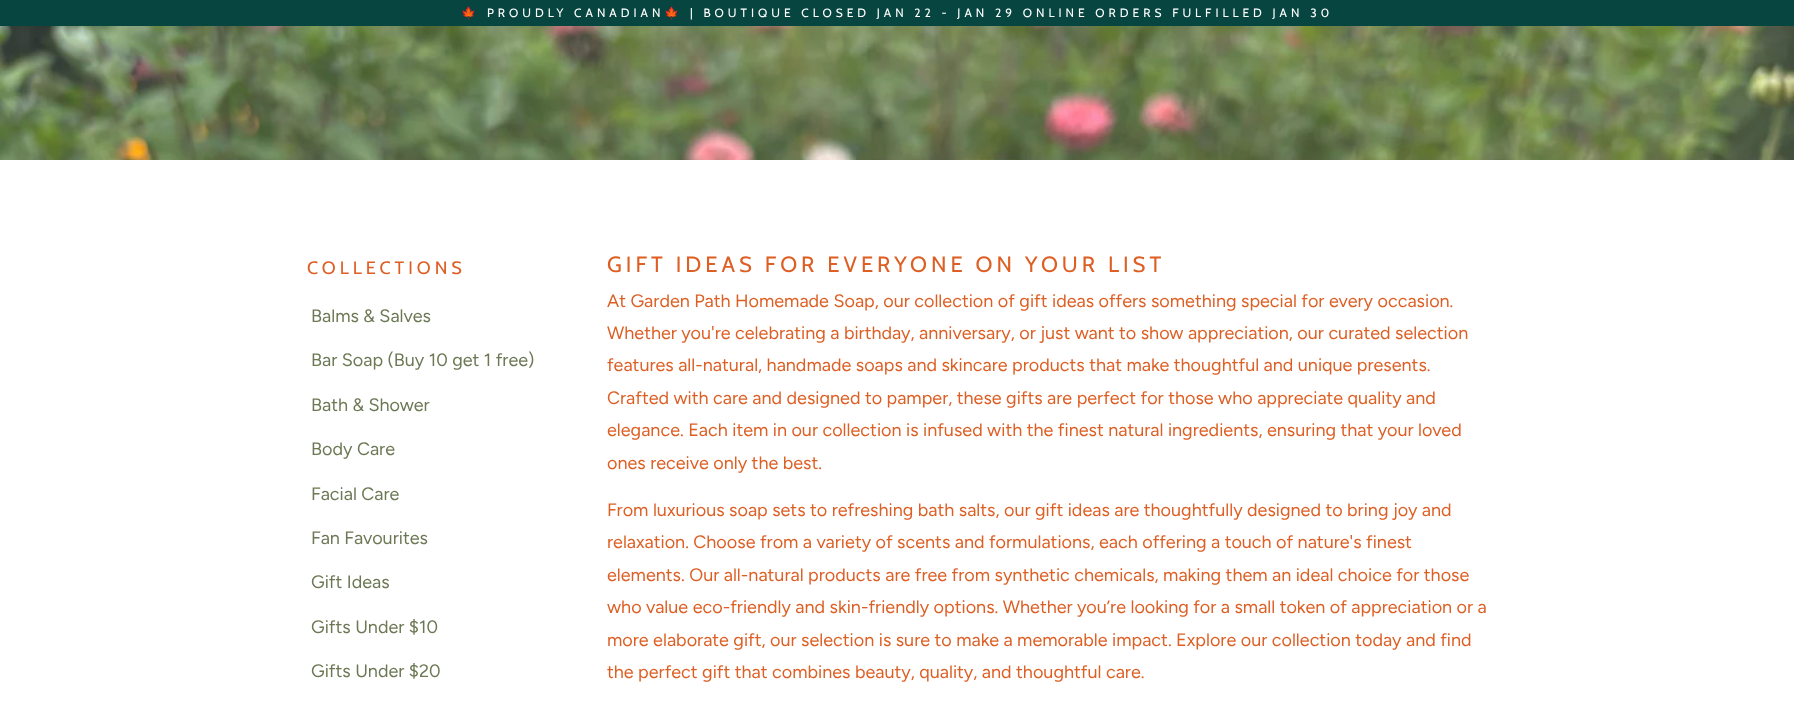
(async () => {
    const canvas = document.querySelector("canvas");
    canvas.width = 1794;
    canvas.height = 708;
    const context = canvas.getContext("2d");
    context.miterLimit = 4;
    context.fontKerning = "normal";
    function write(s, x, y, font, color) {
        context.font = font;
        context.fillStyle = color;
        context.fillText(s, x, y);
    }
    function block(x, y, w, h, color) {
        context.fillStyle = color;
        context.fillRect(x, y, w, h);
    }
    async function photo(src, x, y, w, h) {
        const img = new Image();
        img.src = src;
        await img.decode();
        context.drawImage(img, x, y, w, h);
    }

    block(0, 0, 1794, 708, "rgb(255, 255, 255)");
    block(0, 0, 1794, 26, "rgb(7, 70, 64)");
    context.letterSpacing = "4px";
    write("🍁", 461, 17, "12px Noto Color Emoji", "rgb(255, 255, 255)");
    write("PROUDLY CANADIAN", 487, 17, "12px Cabin", "rgb(255, 255, 255)");
    write("🍁", 664, 17, "12px Noto Color Emoji", "rgb(255, 255, 255)");
    write("| BOUTIQUE CLOSED JAN 22 - JAN 29 ONLINE ORDERS FULFILLED JAN 30", 690, 17, "12px Cabin", "rgb(255, 255, 255)");
    await photo("media/1.png", 0, 26, 1794, 134);
    write("COLLECTIONS", 307, 274, "18px Cabin", "rgb(221, 95, 36)");
    context.letterSpacing = "0px";
    write("Balms & Salves", 311, 322, "18px Figtree", "rgb(108, 120, 84)");
    write("Bar Soap (Buy 10 get 1 free)", 311, 366, "18px Figtree", "rgb(108, 120, 84)");
    write("Bath & Shower", 311, 411, "18px Figtree", "rgb(108, 120, 84)");
    write("Body Care", 311, 455, "18px Figtree", "rgb(108, 120, 84)");
    write("Facial Care", 311, 500, "18px Figtree", "rgb(108, 120, 84)");
    write("Fan Favourites", 311, 544, "18px Figtree", "rgb(108, 120, 84)");
    write("Gift Ideas", 311, 588, "18px Figtree", "rgb(108, 120, 84)");
    write("Gifts Under $10", 311, 633, "18px Figtree", "rgb(108, 120, 84)");
    write("Gifts Under $20", 311, 677, "18px Figtree", "rgb(108, 120, 84)");
    context.letterSpacing = "4px";
    write("GIFT IDEAS FOR EVERYONE ON YOUR LIST", 607, 272, "22px Cabin", "rgb(221, 95, 36)");
    context.letterSpacing = "0px";
    write("At Garden Path Homemade Soap, our collection of gift ideas offers something special for every occasion.", 607, 307, "18px Figtree", "rgb(221, 95, 36)");
    write("Whether you're celebrating a birthday, anniversary, or just want to show appreciation, our curated selection", 607, 339, "18px Figtree", "rgb(221, 95, 36)");
    write("features all-natural, handmade soaps and skincare products that make thoughtful and unique presents.", 607, 371, "18px Figtree", "rgb(221, 95, 36)");
    write("Crafted with care and designed to pamper, these gifts are perfect for those who appreciate quality and", 607, 404, "18px Figtree", "rgb(221, 95, 36)");
    write("elegance. Each item in our collection is infused with the finest natural ingredients, ensuring that your loved", 607, 436, "18px Figtree", "rgb(221, 95, 36)");
    write("ones receive only the best.", 607, 469, "18px Figtree", "rgb(221, 95, 36)");
    write("From luxurious soap sets to refreshing bath salts, our gift ideas are thoughtfully designed to bring joy and", 607, 516, "18px Figtree", "rgb(221, 95, 36)");
    write("relaxation. Choose from a variety of scents and formulations, each offering a touch of nature's finest", 607, 548, "18px Figtree", "rgb(221, 95, 36)");
    write("elements. Our all-natural products are free from synthetic chemicals, making them an ideal choice for those", 607, 581, "18px Figtree", "rgb(221, 95, 36)");
    write("who value eco-friendly and skin-friendly options. Whether you’re looking for a small token of appreciation or a", 607, 613, "18px Figtree", "rgb(221, 95, 36)");
    write("more elaborate gift, our selection is sure to make a memorable impact. Explore our collection today and find", 607, 646, "18px Figtree", "rgb(221, 95, 36)");
    write("the perfect gift that combines beauty, quality, and thoughtful care.", 607, 678, "18px Figtree", "rgb(221, 95, 36)");
})();
